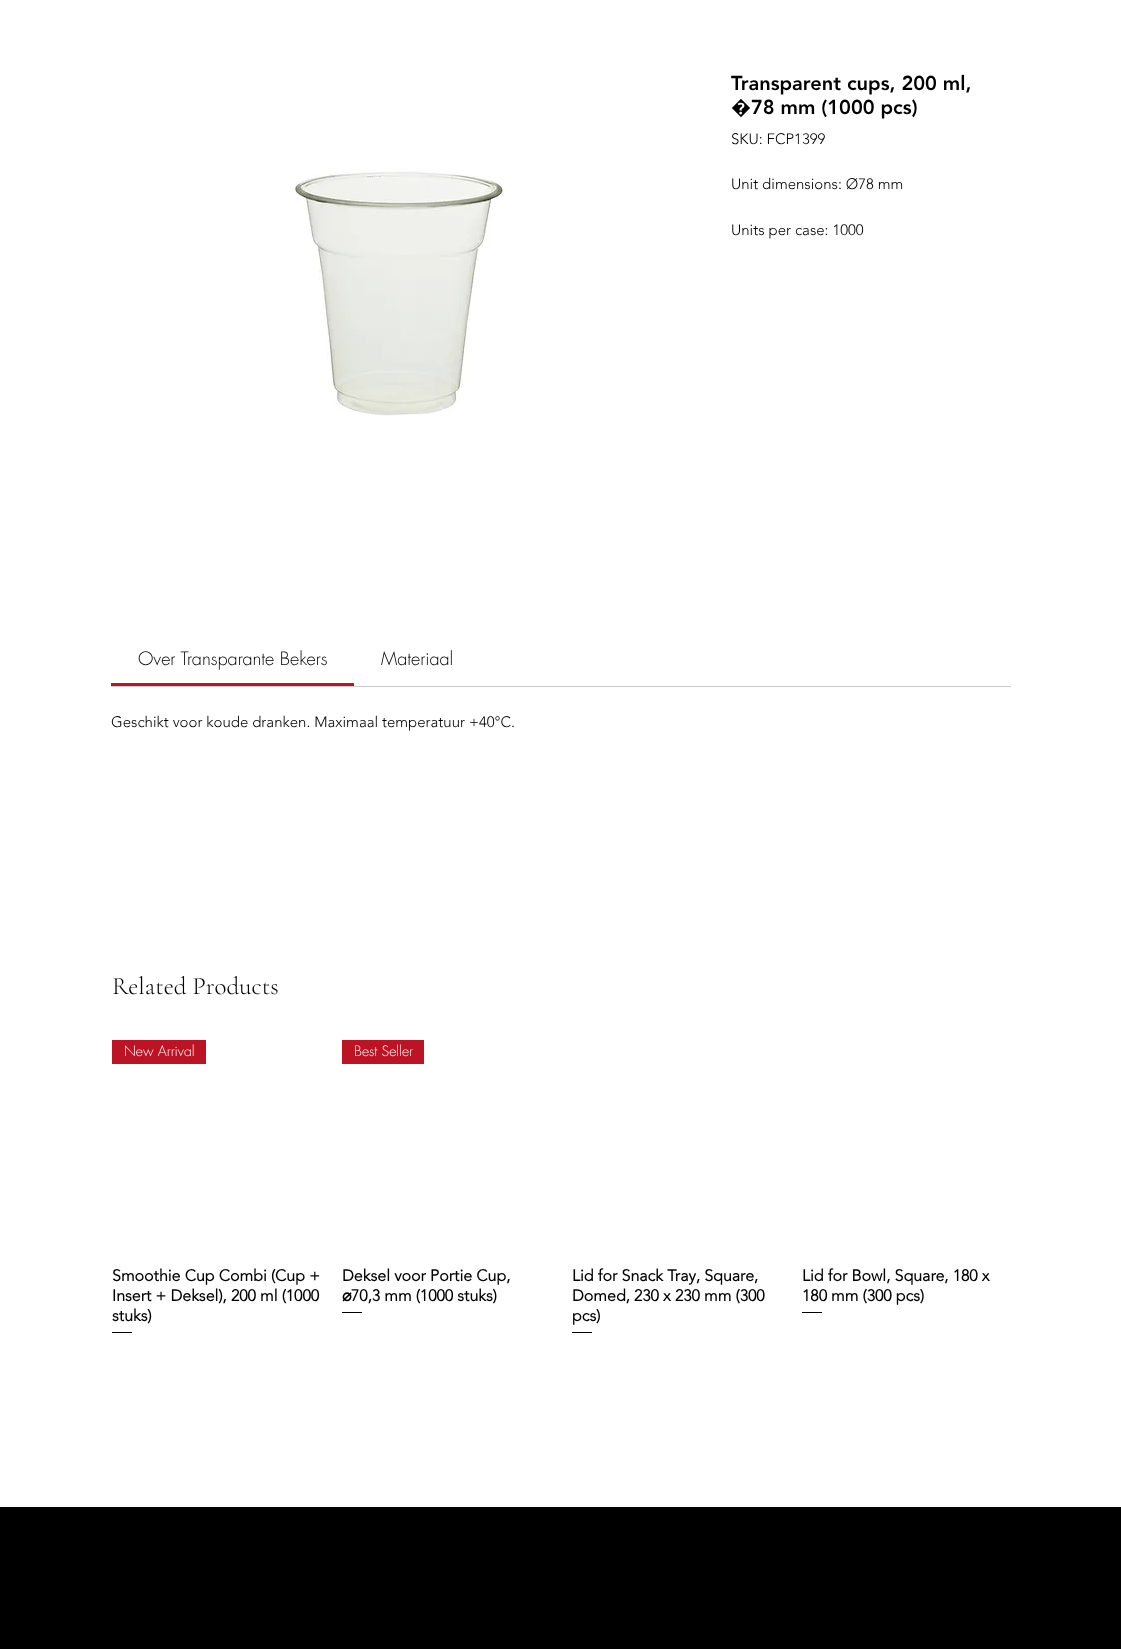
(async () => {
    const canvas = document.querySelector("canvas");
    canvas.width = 1121;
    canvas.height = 1649;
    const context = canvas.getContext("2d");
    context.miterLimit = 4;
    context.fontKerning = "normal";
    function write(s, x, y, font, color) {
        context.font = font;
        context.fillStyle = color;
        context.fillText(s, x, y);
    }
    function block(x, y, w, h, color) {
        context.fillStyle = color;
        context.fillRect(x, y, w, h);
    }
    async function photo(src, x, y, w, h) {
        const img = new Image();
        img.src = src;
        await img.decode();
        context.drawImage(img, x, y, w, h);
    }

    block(0, 0, 1121, 1649, "rgb(255, 255, 255)");
    await photo("media/1.png", 295, 171, 208, 246);
    write("Transparent cups, 200 ml,", 731, 90, "900 20px 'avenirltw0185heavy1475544'", "rgb(0, 0, 0)");
    write("�", 731, 114, "20px Noto Sans", "rgb(0, 0, 0)");
    write("78 mm (1000 pcs)", 751, 114, "900 20px 'avenirltw0185heavy1475544'", "rgb(0, 0, 0)");
    write("SKU: FCP1399", 731, 144, "300 15px 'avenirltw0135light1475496'", "rgb(0, 0, 0)");
    write("Unit dimensions: Ø78 mm", 731, 189, "300 15px 'avenirltw0135light1475496'", "rgb(0, 0, 0)");
    write("Units per case: 1000", 731, 235, "300 15px 'avenirltw0135light1475496'", "rgb(0, 0, 0)");
    block(111, 686, 900, 1, "rgb(204, 204, 204)");
    block(111, 683, 243, 3, "rgb(188, 20, 36)");
    write("Over Transparante Bekers", 138, 665, "300 18px futura", "rgb(0, 0, 0)");
    write("Materiaal", 381, 665, "300 18px futura", "rgb(0, 0, 0)");
    write("Geschikt voor koude dranken. Maximaal temperatuur +40°C.", 111, 727, "300 15px 'avenirltw0135light1475496'", "rgb(0, 0, 0)");
    write("Related Products", 112, 994, "300 25px Cormorant Garamond", "rgb(0, 0, 0)");
    block(112, 1040, 94, 24, "rgb(188, 20, 36)");
    write("New Arrival", 124, 1056, "300 14px futura", "rgb(255, 255, 255)");
    write("Smoothie Cup Combi (Cup +", 112, 1281, "bold 16px 'avenirltw0135light1475496'", "rgb(0, 0, 0)");
    write("Insert + Deksel), 200 ml (1000", 112, 1301, "bold 16px 'avenirltw0135light1475496'", "rgb(0, 0, 0)");
    write("stuks)", 112, 1321, "bold 16px 'avenirltw0135light1475496'", "rgb(0, 0, 0)");
    block(112, 1332, 20, 1, "rgb(0, 0, 0)");
    block(342, 1040, 82, 24, "rgb(188, 20, 36)");
    write("Best Seller", 354, 1056, "300 14px futura", "rgb(255, 255, 255)");
    write("Deksel voor Portie Cup,", 342, 1281, "bold 16px 'avenirltw0135light1475496'", "rgb(0, 0, 0)");
    write("⌀", 342, 1301, "bold 16px DejaVu Sans", "rgb(0, 0, 0)");
    write("70,3 mm (1000 stuks)", 351, 1301, "bold 16px 'avenirltw0135light1475496'", "rgb(0, 0, 0)");
    block(342, 1312, 20, 1, "rgb(0, 0, 0)");
    write("Lid for Snack Tray, Square,", 572, 1281, "bold 16px 'avenirltw0135light1475496'", "rgb(0, 0, 0)");
    write("Domed, 230 x 230 mm (300", 572, 1301, "bold 16px 'avenirltw0135light1475496'", "rgb(0, 0, 0)");
    write("pcs)", 572, 1321, "bold 16px 'avenirltw0135light1475496'", "rgb(0, 0, 0)");
    block(572, 1332, 20, 1, "rgb(0, 0, 0)");
    write("Lid for Bowl, Square, 180 x", 802, 1281, "bold 16px 'avenirltw0135light1475496'", "rgb(0, 0, 0)");
    write("180 mm (300 pcs)", 802, 1301, "bold 16px 'avenirltw0135light1475496'", "rgb(0, 0, 0)");
    block(802, 1312, 20, 1, "rgb(0, 0, 0)");
    block(0, 1507, 1121, 142, "rgb(0, 0, 0)");
})();
